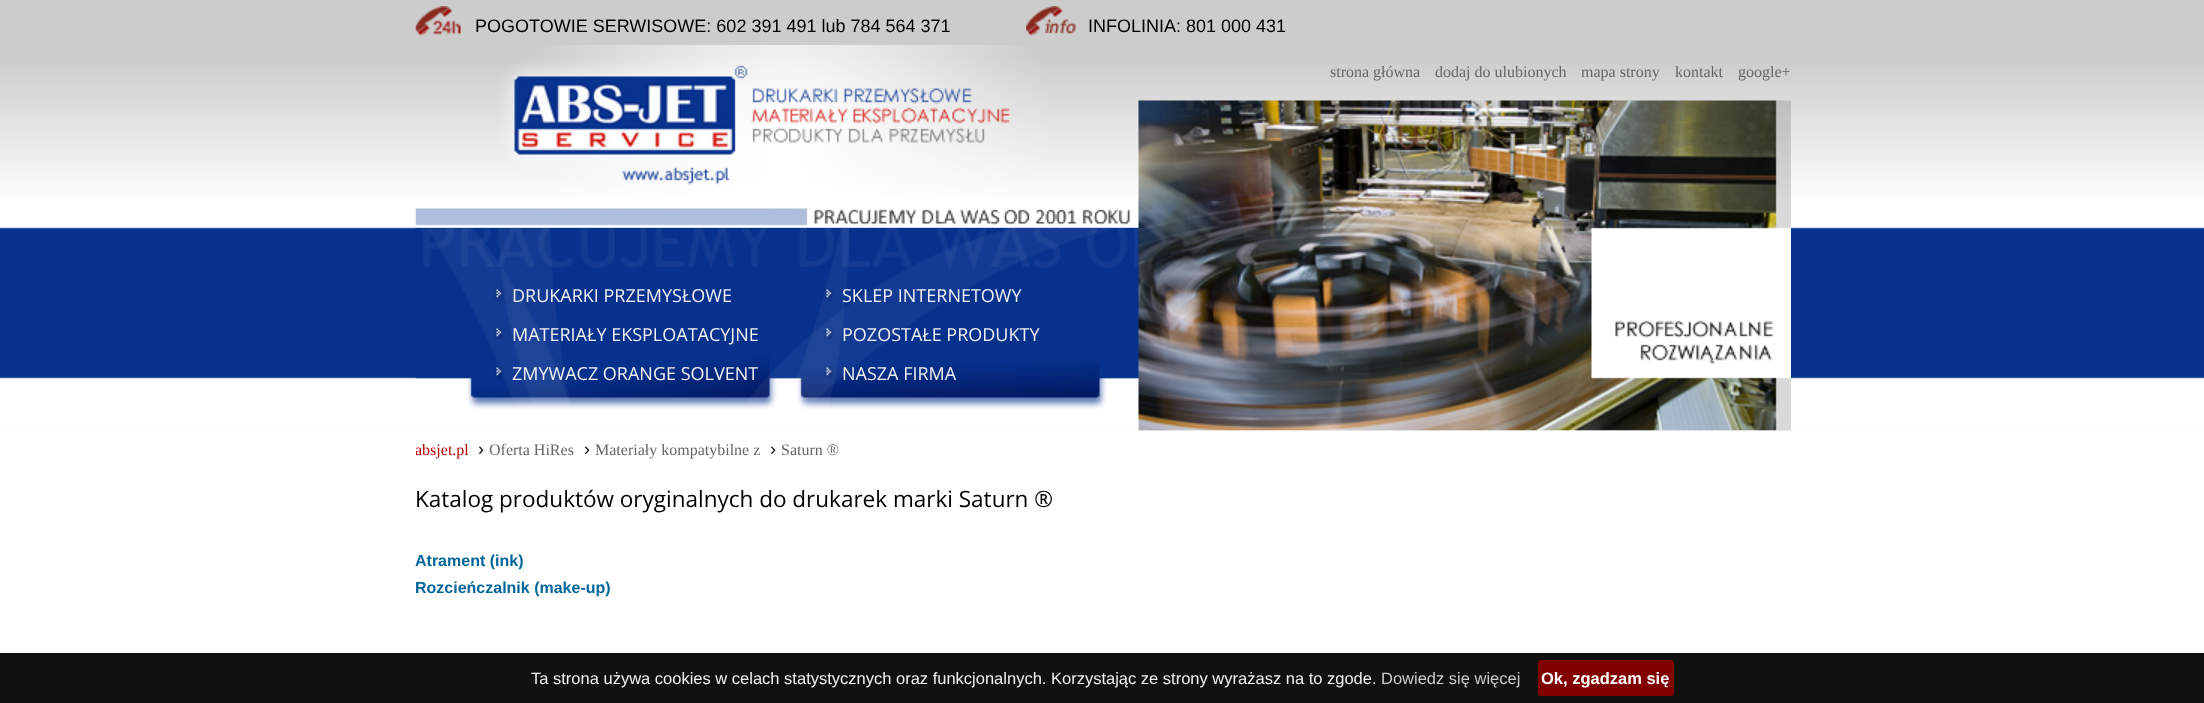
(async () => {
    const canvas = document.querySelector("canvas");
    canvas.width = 2204;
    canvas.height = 703;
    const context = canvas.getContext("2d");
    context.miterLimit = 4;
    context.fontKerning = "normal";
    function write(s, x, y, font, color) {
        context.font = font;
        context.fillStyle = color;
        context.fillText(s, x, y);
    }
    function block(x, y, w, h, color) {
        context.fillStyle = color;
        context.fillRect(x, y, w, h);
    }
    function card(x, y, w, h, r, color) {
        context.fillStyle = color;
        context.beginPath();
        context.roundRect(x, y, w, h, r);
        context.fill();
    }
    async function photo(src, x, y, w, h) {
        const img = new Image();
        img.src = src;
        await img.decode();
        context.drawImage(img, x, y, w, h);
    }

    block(0, 0, 2204, 703, "rgb(204, 204, 204)");
    await photo("media/1.png", 415, 6, 46, 30);
    write("POGOTOWIE SERWISOWE: 602 391 491 lub 784 564 371", 475, 32, "18px Liberation Sans", "rgb(0, 0, 0)");
    await photo("media/2.png", 1026, 6, 50, 30);
    write("INFOLINIA: 801 000 431", 1088, 32, "18px Liberation Sans", "rgb(0, 0, 0)");
    block(0, 430, 2204, 1, "rgb(241, 241, 241)");
    await photo("media/3.png", 0, 45, 2204, 386);
    write("strona główna", 1330, 77, "16px Liberation Serif", "rgb(102, 102, 102)");
    write("dodaj do ulubionych", 1435, 77, "16px Liberation Serif", "rgb(102, 102, 102)");
    write("mapa strony", 1581, 77, "16px Liberation Serif", "rgb(102, 102, 102)");
    write("kontakt", 1675, 77, "16px Liberation Serif", "rgb(102, 102, 102)");
    write("google+", 1738, 77, "16px Liberation Serif", "rgb(102, 102, 102)");
    block(1139, 430, 652, 1, "rgb(241, 241, 241)");
    await photo("media/6.png", 415, 228, 724, 182);
    await photo("media/4.png", 1138, 100, 653, 331);
    await photo("media/5.png", 415, 45, 715, 181);
    await photo("media/7.png", 493, 288, 10, 13);
    write("DRUKARKI PRZEMYSŁOWE", 512, 302, "18px Open Sans", "rgb(241, 241, 241)");
    await photo("media/8.png", 493, 327, 10, 13);
    write("MATERIAŁY EKSPLOATACYJNE", 512, 341, "18px Open Sans", "rgb(241, 241, 241)");
    await photo("media/9.png", 494, 366, 9, 13);
    write("ZMYWACZ ORANGE SOLVENT", 512, 380, "18px Open Sans", "rgb(241, 241, 241)");
    await photo("media/10.png", 824, 288, 9, 13);
    write("SKLEP INTERNETOWY", 842, 302, "18px Open Sans", "rgb(241, 241, 241)");
    await photo("media/11.png", 823, 327, 10, 13);
    write("POZOSTAŁE PRODUKTY", 842, 341, "18px Open Sans", "rgb(241, 241, 241)");
    await photo("media/12.png", 823, 366, 10, 13);
    write("NASZA FIRMA", 842, 380, "18px Open Sans", "rgb(241, 241, 241)");
    block(0, 431, 2204, 222, "rgb(255, 255, 255)");
    context.save();
    context.beginPath();
    context.rect(416, 431, 1375, 52);
    context.clip();
    write("absjet.pl", 415, 455, "16px Liberation Serif", "rgb(179, 0, 0)");
    context.restore();
    write("›", 478, 455, "18px Liberation Sans", "rgb(0, 0, 0)");
    write("Oferta HiRes", 489, 455, "16px Liberation Serif", "rgb(102, 102, 102)");
    write("›", 584, 455, "18px Liberation Sans", "rgb(0, 0, 0)");
    write("Materiały kompatybilne z", 595, 455, "16px Liberation Serif", "rgb(102, 102, 102)");
    write("›", 770, 455, "18px Liberation Sans", "rgb(0, 0, 0)");
    write("Saturn ®", 781, 455, "16px Liberation Serif", "rgb(102, 102, 102)");
    write("Katalog produktów oryginalnych do drukarek marki Saturn ®", 415, 507, "22.5px Open Sans", "rgb(0, 0, 0)");
    write("Atrament (ink)", 415, 566, "bold 16px Liberation Sans", "rgb(0, 102, 153)");
    context.save();
    context.beginPath();
    context.rect(416, 483, 975, 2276);
    context.clip();
    write("Rozcieńczalnik (make-up)", 415, 593, "bold 16px Liberation Sans", "rgb(0, 102, 153)");
    context.restore();
    block(0, 653, 2204, 50, "rgb(17, 17, 17)");
    write("Ta strona używa cookies w celach statystycznych oraz funkcjonalnych. Korzystając ze strony wyrażasz na to zgode.", 531, 684, "16.5px Liberation Sans", "rgb(241, 241, 241)");
    write("Dowiedz się więcej", 1381, 684, "16.5px Liberation Sans", "rgb(204, 204, 204)");
    card(1538, 660, 136, 36, 3, "rgb(128, 0, 0)");
    write("Ok, zgadzam się", 1541, 684, "bold 16.5px Liberation Sans", "rgb(255, 255, 255)");
})();
